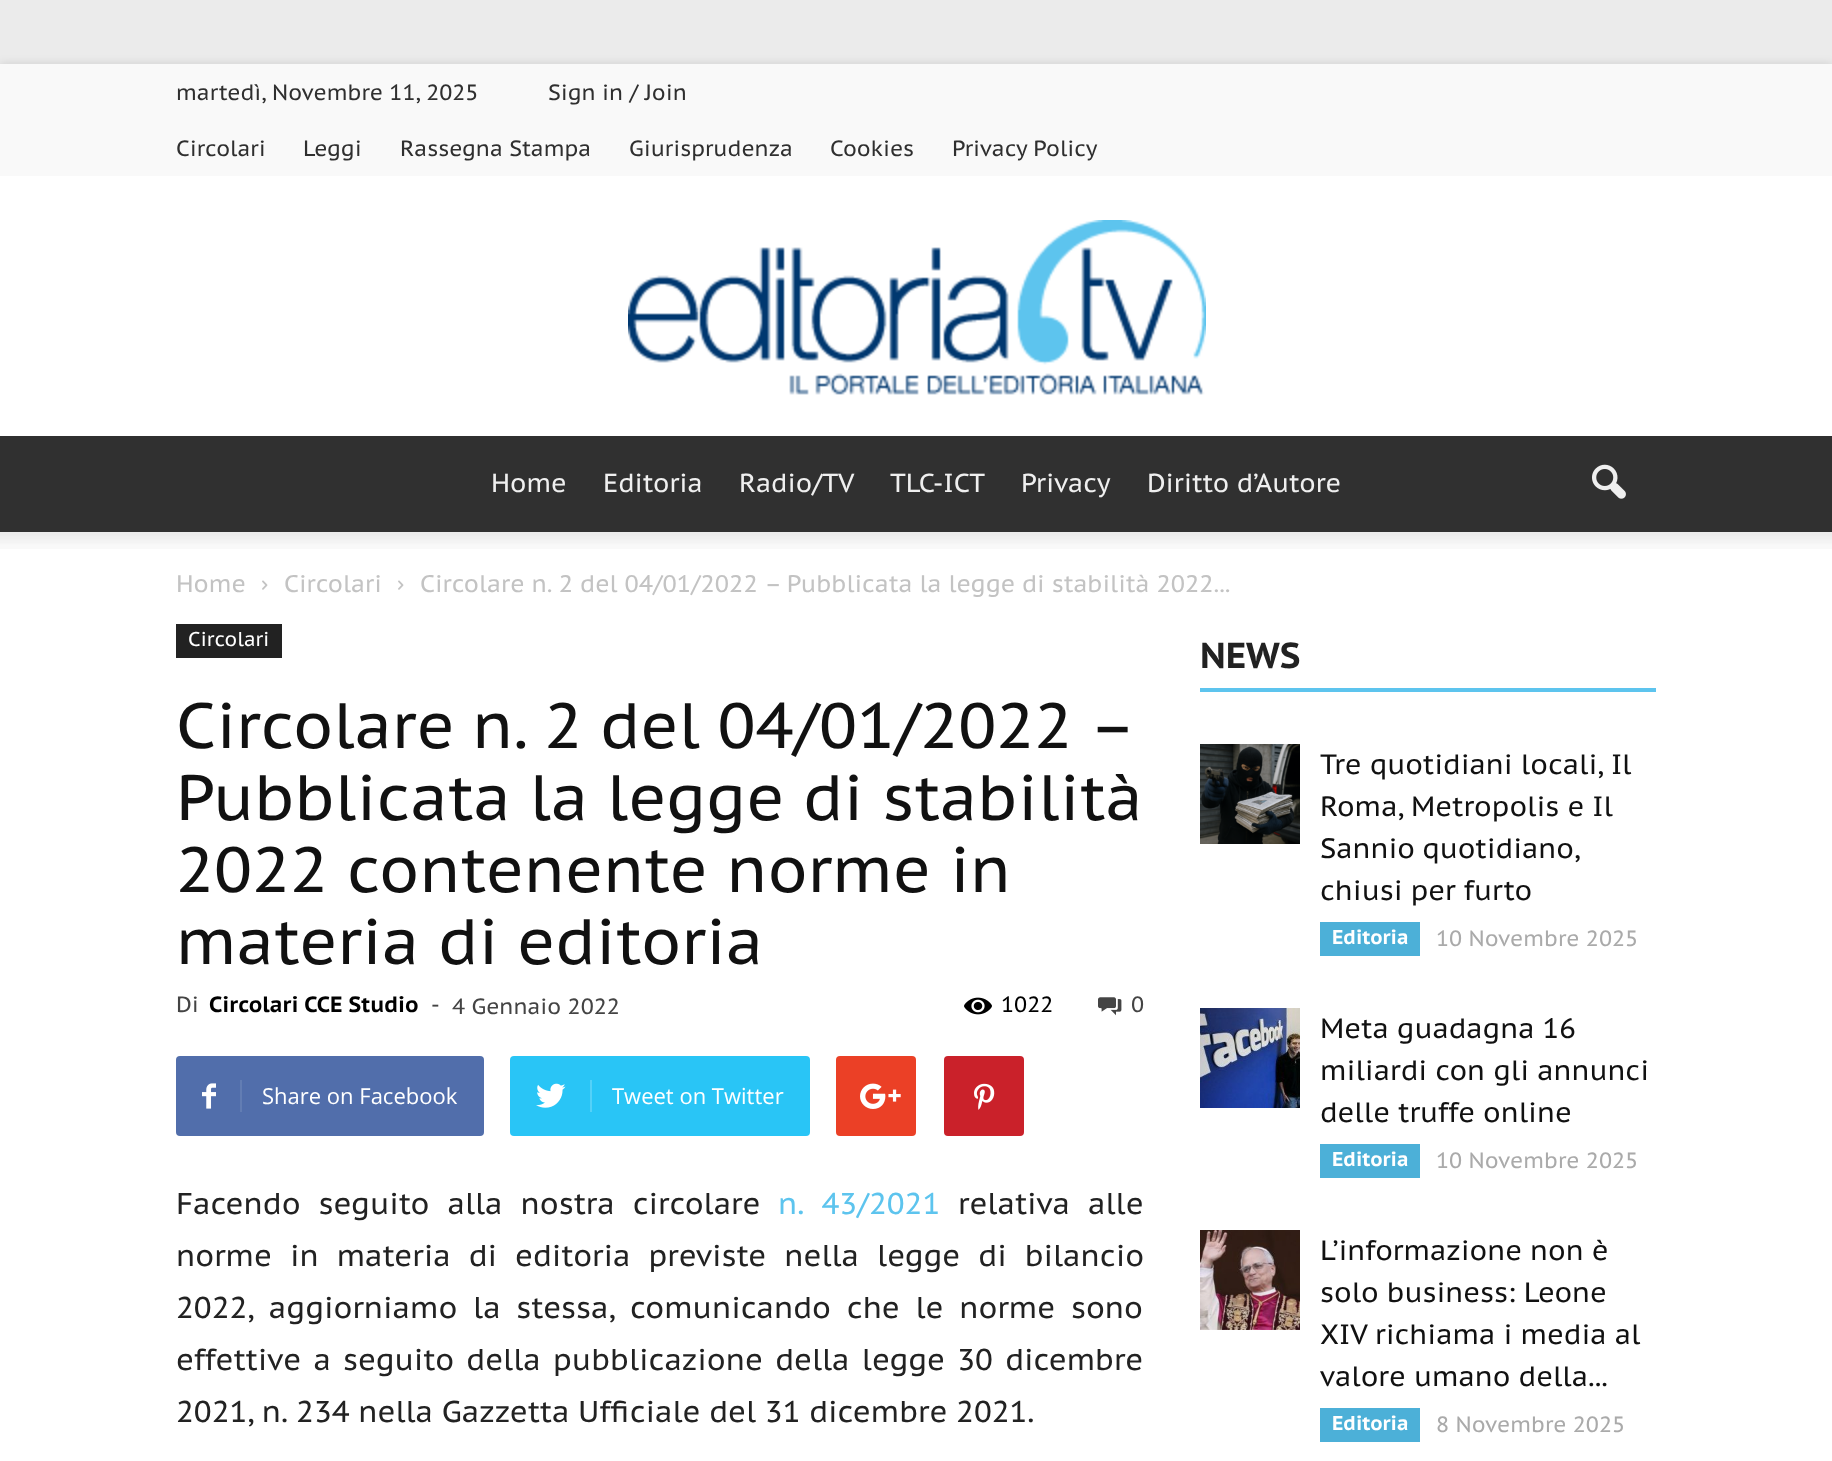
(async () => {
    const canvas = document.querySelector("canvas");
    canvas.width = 1832;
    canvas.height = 1461;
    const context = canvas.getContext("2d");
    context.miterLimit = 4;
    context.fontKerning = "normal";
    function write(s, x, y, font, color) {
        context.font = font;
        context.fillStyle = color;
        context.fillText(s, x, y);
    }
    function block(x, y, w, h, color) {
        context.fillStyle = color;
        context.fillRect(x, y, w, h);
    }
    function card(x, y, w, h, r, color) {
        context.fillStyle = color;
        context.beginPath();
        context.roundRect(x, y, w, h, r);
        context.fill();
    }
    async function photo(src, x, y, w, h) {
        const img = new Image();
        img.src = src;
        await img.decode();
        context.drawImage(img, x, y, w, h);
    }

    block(0, 0, 1832, 1461, "rgb(235, 235, 235)");
    context.fillStyle = "rgba(0, 0, 0, 0.12)";
    context.filter = "blur(5px)";
    context.beginPath();
    context.rect(0, 64, 1832, 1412);
    context.fill();
    context.filter = "none";
    block(0, 64, 1832, 112, "rgb(249, 249, 249)");
    write("martedì, Novembre 11, 2025", 176, 100, "22px PT Sans Caption", "rgb(47, 47, 47)");
    write("Sign in / Join", 548, 100, "22px PT Sans Caption", "rgb(47, 47, 47)");
    write("Circolari", 176, 156, "22px PT Sans Caption", "rgb(47, 47, 47)");
    write("Leggi", 303, 156, "22px PT Sans Caption", "rgb(47, 47, 47)");
    write("Rassegna Stampa", 400, 156, "22px PT Sans Caption", "rgb(47, 47, 47)");
    write("Giurisprudenza", 629, 156, "22px PT Sans Caption", "rgb(47, 47, 47)");
    write("Cookies", 830, 156, "22px PT Sans Caption", "rgb(47, 47, 47)");
    write("Privacy Policy", 952, 156, "22px PT Sans Caption", "rgb(47, 47, 47)");
    block(0, 176, 1832, 260, "rgb(255, 255, 255)");
    await photo("media/1.png", 628, 220, 578, 175);
    block(0, 436, 1832, 96, "rgb(48, 48, 48)");
    write("Home", 491, 492, "26px PT Sans Caption", "rgb(239, 239, 239)");
    write("Editoria", 603, 492, "26px PT Sans Caption", "rgb(239, 239, 239)");
    write("Radio/TV", 739, 492, "26px PT Sans Caption", "rgb(239, 239, 239)");
    write("TLC-ICT", 890, 492, "26px PT Sans Caption", "rgb(239, 239, 239)");
    write("Privacy", 1021, 492, "26px PT Sans Caption", "rgb(239, 239, 239)");
    write("Diritto d’Autore", 1147, 492, "26px PT Sans Caption", "rgb(239, 239, 239)");
    await photo("media/2.png", 1592, 464, 34, 35);
    block(0, 532, 1832, 929, "rgb(255, 255, 255)");
    await photo("media/3.png", 0, 532, 1832, 17);
    write("Home", 176, 592, "24px PT Sans Caption", "rgb(195, 195, 195)");
    await photo("media/4.png", 262, 580, 6, 10);
    write("Circolari", 284, 592, "24px PT Sans Caption", "rgb(195, 195, 195)");
    await photo("media/4.png", 398, 580, 6, 10);
    write("Circolare n. 2 del 04/01/2022 – Pubblicata la legge di stabilità 2022...", 420, 592, "24px PT Sans Caption", "rgb(195, 195, 195)");
    block(176, 624, 106, 34, "rgb(34, 34, 34)");
    write("Circolari", 188, 646, "20px PT Sans Caption", "rgb(255, 255, 255)");
    context.wordSpacing = "-1px";
    write("Circolare n. 2 del 04/01/2022 –", 176, 748, "64px PT Sans Caption", "rgb(17, 17, 17)");
    context.wordSpacing = "0px";
    write("Pubblicata la legge di stabilità", 176, 820, "64px PT Sans Caption", "rgb(17, 17, 17)");
    write("2022 contenente norme in", 176, 892, "64px PT Sans Caption", "rgb(17, 17, 17)");
    write("materia di editoria", 176, 964, "64px PT Sans Caption", "rgb(17, 17, 17)");
    write("Di", 176, 1012, "22px PT Sans Caption", "rgb(68, 68, 68)");
    write("Circolari CCE Studio", 209, 1012, "bold 22px PT Sans Caption", "rgb(0, 0, 0)");
    write("-", 431, 1012, "22px PT Sans Caption", "rgb(68, 68, 68)");
    write("4 Gennaio 2022", 452, 1014, "22px PT Sans Caption", "rgb(68, 68, 68)");
    await photo("media/5.png", 964, 997, 28, 18);
    write("1022", 1001, 1012, "22px PT Sans Caption", "rgb(0, 0, 0)");
    await photo("media/6.png", 1098, 997, 24, 19);
    write("0", 1131, 1012, "22px PT Sans Caption", "rgb(68, 68, 68)");
    card(176, 1056, 308, 80, 4, "rgb(81, 110, 171)");
    await photo("media/7.png", 202, 1083, 14, 26);
    block(240, 1080, 2, 32, "rgb(98, 125, 179)");
    write("Share on Facebook", 262, 1104, "22px Open Sans", "rgb(255, 255, 255)");
    card(510, 1056, 300, 80, 4, "rgb(41, 197, 246)");
    await photo("media/8.png", 536, 1083, 30, 25);
    block(590, 1080, 2, 32, "rgb(84, 209, 248)");
    write("Tweet on Twitter", 612, 1104, "22px Open Sans", "rgb(255, 255, 255)");
    card(836, 1056, 80, 80, 4, "rgb(235, 64, 38)");
    await photo("media/9.png", 860, 1083, 41, 26);
    card(944, 1056, 80, 80, 4, "rgb(202, 33, 42)");
    await photo("media/10.png", 974, 1083, 21, 27);
    context.wordSpacing = "9.25px";
    write("Facendo seguito alla nostra circolare", 176, 1214, "30px PT Sans Caption", "rgb(34, 34, 34)");
    write("n. 43/2021", 778, 1214, "30px PT Sans Caption", "rgb(93, 196, 238)");
    write("relativa alle", 958, 1214, "30px PT Sans Caption", "rgb(34, 34, 34)");
    write("norme in materia di editoria previste nella legge di bilancio", 176, 1266, "30px PT Sans Caption", "rgb(34, 34, 34)");
    context.wordSpacing = "7px";
    write("2022, aggiorniamo la stessa, comunicando che le norme sono", 176, 1318, "30px PT Sans Caption", "rgb(34, 34, 34)");
    context.wordSpacing = "3.5px";
    write("effettive a seguito della pubblicazione della legge 30 dicembre", 176, 1370, "30px PT Sans Caption", "rgb(34, 34, 34)");
    context.wordSpacing = "0px";
    write("2021, n. 234 nella Gazzetta Ufficiale del 31 dicembre 2021.", 176, 1422, "30px PT Sans Caption", "rgb(34, 34, 34)");
    block(1200, 688, 456, 4, "rgb(93, 196, 238)");
    write("NEWS", 1200, 668, "bold 36px PT Sans Caption", "rgb(34, 34, 34)");
    await photo("media/11.png", 1200, 744, 100, 100);
    write("Tre quotidiani locali, Il", 1320, 774, "28px PT Sans Caption", "rgb(17, 17, 17)");
    write("Roma, Metropolis e Il", 1320, 816, "28px PT Sans Caption", "rgb(17, 17, 17)");
    context.wordSpacing = "-1px";
    write("Sannio quotidiano,", 1320, 858, "28px PT Sans Caption", "rgb(17, 17, 17)");
    context.wordSpacing = "0px";
    write("chiusi per furto", 1320, 900, "28px PT Sans Caption", "rgb(17, 17, 17)");
    block(1320, 922, 100, 34, "rgb(76, 176, 216)");
    write("Editoria", 1332, 944, "bold 20px PT Sans Caption", "rgb(255, 255, 255)");
    write("10 Novembre 2025", 1436, 946, "22px PT Sans Caption", "rgb(170, 170, 170)");
    await photo("media/12.png", 1200, 1008, 100, 100);
    write("Meta guadagna 16", 1320, 1038, "28px PT Sans Caption", "rgb(17, 17, 17)");
    write("miliardi con gli annunci", 1320, 1080, "28px PT Sans Caption", "rgb(17, 17, 17)");
    write("delle truffe online", 1320, 1122, "28px PT Sans Caption", "rgb(17, 17, 17)");
    block(1320, 1144, 100, 34, "rgb(76, 176, 216)");
    write("Editoria", 1332, 1166, "bold 20px PT Sans Caption", "rgb(255, 255, 255)");
    write("10 Novembre 2025", 1436, 1168, "22px PT Sans Caption", "rgb(170, 170, 170)");
    await photo("media/13.png", 1200, 1230, 100, 100);
    write("L’informazione non è", 1320, 1260, "28px PT Sans Caption", "rgb(17, 17, 17)");
    write("solo business: Leone", 1320, 1302, "28px PT Sans Caption", "rgb(17, 17, 17)");
    write("XIV richiama i media al", 1320, 1344, "28px PT Sans Caption", "rgb(17, 17, 17)");
    write("valore umano della...", 1320, 1386, "28px PT Sans Caption", "rgb(17, 17, 17)");
    block(1320, 1408, 100, 34, "rgb(76, 176, 216)");
    write("Editoria", 1332, 1430, "bold 20px PT Sans Caption", "rgb(255, 255, 255)");
    write("8 Novembre 2025", 1436, 1432, "22px PT Sans Caption", "rgb(170, 170, 170)");
})();
